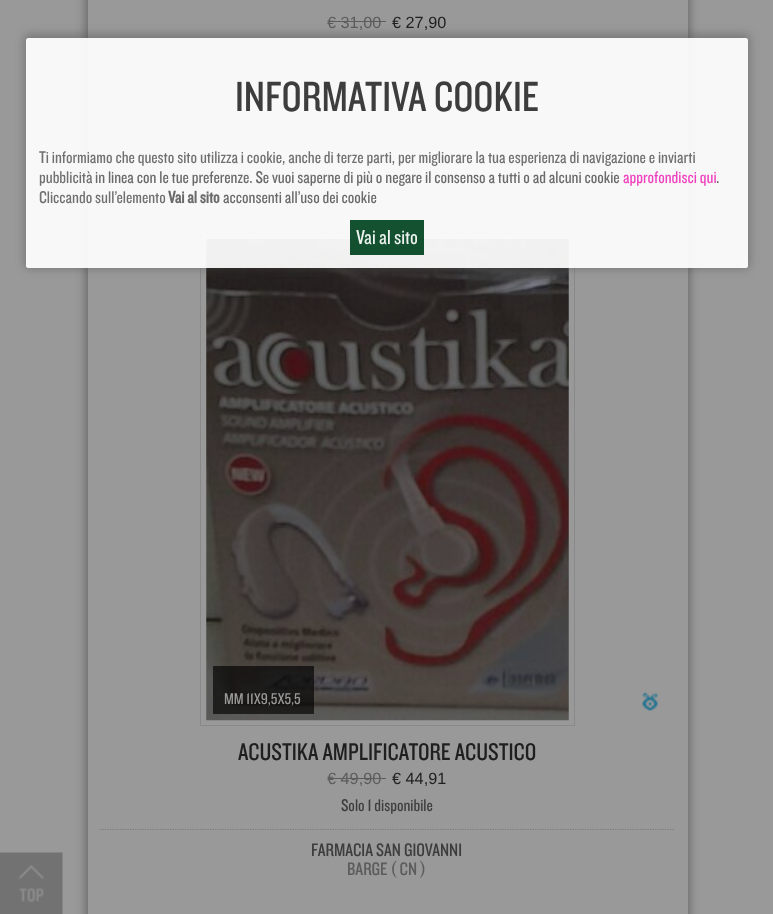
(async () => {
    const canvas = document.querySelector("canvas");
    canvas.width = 773;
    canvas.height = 914;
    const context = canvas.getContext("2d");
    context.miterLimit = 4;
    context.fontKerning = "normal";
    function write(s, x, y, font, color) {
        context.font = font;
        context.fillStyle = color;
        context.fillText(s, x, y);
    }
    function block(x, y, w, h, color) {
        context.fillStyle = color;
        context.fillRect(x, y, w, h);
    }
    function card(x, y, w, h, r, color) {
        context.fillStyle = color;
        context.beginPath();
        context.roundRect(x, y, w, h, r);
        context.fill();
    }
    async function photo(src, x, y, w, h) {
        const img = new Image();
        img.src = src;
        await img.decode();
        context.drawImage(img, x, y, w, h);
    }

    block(0, 0, 773, 914, "rgb(153, 153, 153)");
    context.fillStyle = "rgba(41, 41, 41, 0.4)";
    context.filter = "blur(4px)";
    context.beginPath();
    context.rect(85, -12, 605, 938);
    context.fill();
    context.filter = "none";
    block(88, 0, 600, 914, "rgb(153, 153, 153)");
    write("€ 31,00", 327, 28, "16.25px Liberation Sans", "rgb(92, 92, 92)");
    block(328, 21, 58, 1, "rgb(92, 92, 92)");
    write("€ 27,90", 392, 28, "16.25px Liberation Sans", "rgb(31, 31, 31)");
    context.beginPath();
    context.moveTo(100, 73);
    context.lineTo(675, 73);
    context.strokeStyle = "rgb(122, 122, 122)";
    context.lineWidth = 1.2;
    context.setLineDash([1.25, 1.25]);
    context.stroke();
    context.strokeStyle = "rgb(137, 137, 137)";
    context.lineWidth = 1;
    context.setLineDash([]);
    context.strokeRect(200.5, 233.5, 374, 492);
    await photo("media/1.png", 206, 239, 363, 482);
    block(213, 666, 101, 48, "rgba(0, 0, 0, 0.65)");
    write("MM 11X9,5X5,5", 224, 704, "300 16.25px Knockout", "rgb(153, 153, 153)");
    write("ACUSTIKA AMPLIFICATORE ACUSTICO", 238, 760, "300 25px Knockout", "rgb(31, 31, 31)");
    write("€ 49,90", 327, 784, "16.25px Liberation Sans", "rgb(92, 92, 92)");
    block(328, 778, 58, 1, "rgb(92, 92, 92)");
    write("€ 44,91", 392, 784, "16.25px Liberation Sans", "rgb(31, 31, 31)");
    write("Solo 1 disponibile", 341, 811, "300 17.5px Knockout", "rgb(61, 61, 61)");
    context.beginPath();
    context.moveTo(100, 829.5);
    context.lineTo(675, 829.5);
    context.strokeStyle = "rgb(122, 122, 122)";
    context.lineWidth = 1.2;
    context.setLineDash([1.25, 1.25]);
    context.stroke();
    write("FARMACIA SAN GIOVANNI", 311, 856, "300 18.75px Knockout", "rgb(61, 61, 61)");
    write("BARGE ( CN )", 347, 875, "300 18.75px Knockout", "rgb(92, 92, 92)");
    await photo("media/2.png", 642, 692, 16, 19);
    context.save();
    context.beginPath();
    context.moveTo(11, 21);
    context.lineTo(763, 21);
    context.lineTo(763, 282);
    context.lineTo(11, 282);
    context.closePath();
    context.moveTo(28.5, 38);
    context.lineTo(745.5, 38);
    context.bezierCurveTo(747, 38, 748, 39, 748, 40.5);
    context.lineTo(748, 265.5);
    context.bezierCurveTo(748, 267, 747, 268, 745.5, 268);
    context.lineTo(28.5, 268);
    context.bezierCurveTo(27, 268, 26, 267, 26, 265.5);
    context.lineTo(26, 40.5);
    context.bezierCurveTo(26, 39, 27, 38, 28.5, 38);
    context.closePath();
    context.clip("evenodd");
    context.fillStyle = "rgba(68, 68, 68, 0.37)";
    context.filter = "blur(4px)";
    context.beginPath();
    context.roundRect(24, 34, 726, 235, 5);
    context.fill();
    context.filter = "none";
    context.restore();
    card(26, 38, 722, 230, 2.5, "rgba(255, 255, 255, 0.93)");
    write("INFORMATIVA COOKIE", 235, 111, "300 43.75px Knockout", "rgb(61, 61, 61)");
    write("Ti informiamo che questo sito utilizza i cookie, anche di terze parti, per migliorare la tua esperienza di navigazione e inviarti", 39, 163, "300 17.5px Knockout", "rgb(112, 112, 112)");
    write("pubblicità", 39, 183, "300 17.5px Knockout", "rgb(112, 112, 112)");
    write("in linea con le tue preferenze. Se vuoi saperne di più o negare il consenso a tutti o ad alcuni cookie", 95, 183, "300 17.5px Knockout", "rgb(106, 106, 106)");
    write("approfondisci qui", 623, 183, "300 17.5px Knockout", "rgb(239, 65, 191)");
    write(".", 716, 183, "300 17.5px Knockout", "rgb(106, 106, 106)");
    write("Cliccando sull’elemento", 39, 203, "300 17.5px Knockout", "rgb(112, 112, 112)");
    write("Vai al sito", 168, 203, "bold 17.5px Knockout", "rgb(106, 106, 106)");
    write("acconsenti all’uso dei cookie", 223, 203, "300 17.5px Knockout", "rgb(106, 106, 106)");
    block(350, 220, 74, 35, "rgba(1, 68, 33, 0.93)");
    write("Vai al sito", 356, 244, "300 21px Knockout", "rgb(238, 243, 240)");
    await photo("media/3.png", 0, 852, 63, 62);
})();
